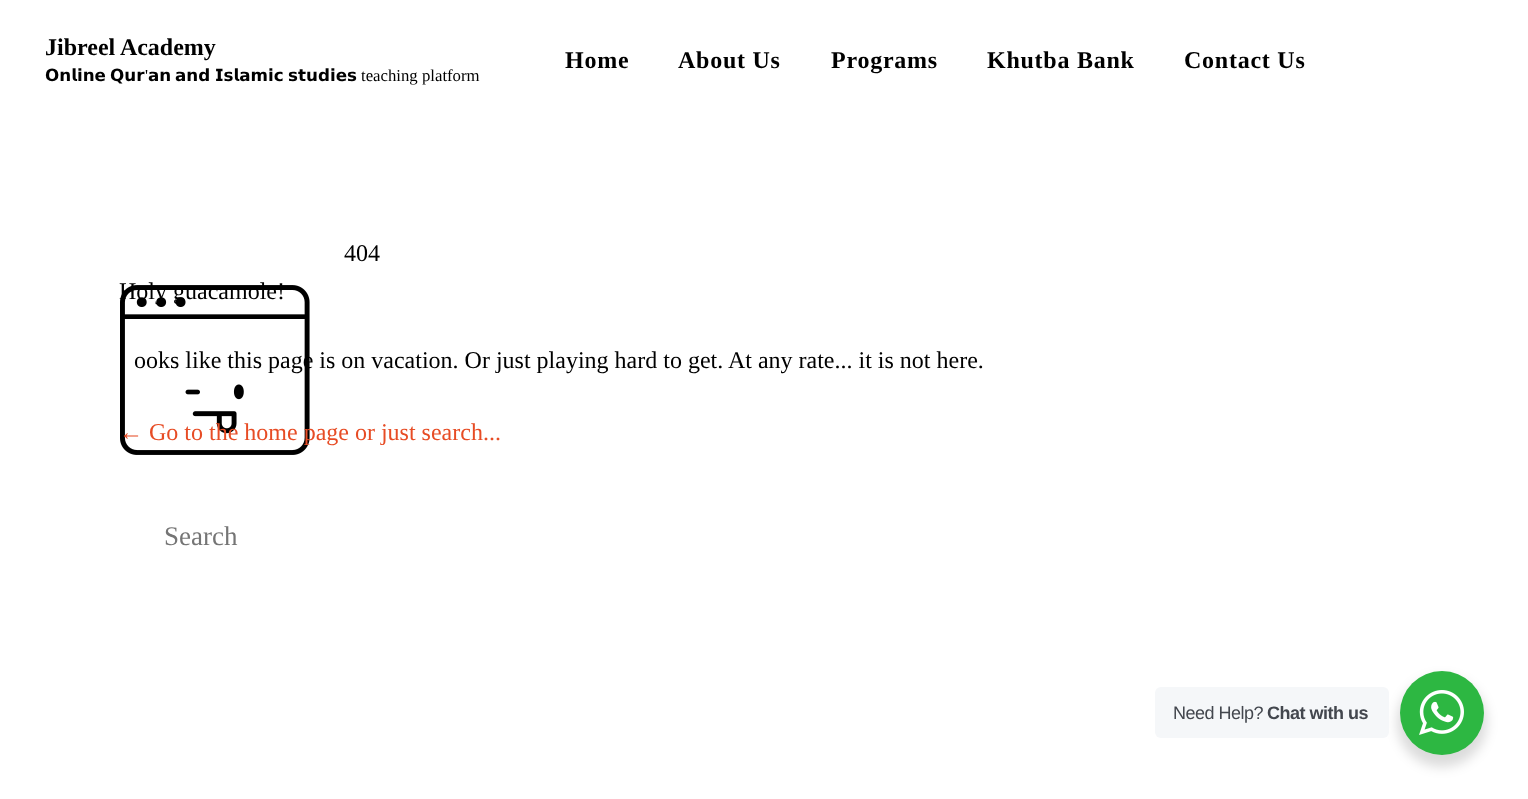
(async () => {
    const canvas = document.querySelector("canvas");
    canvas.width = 1528;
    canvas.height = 799;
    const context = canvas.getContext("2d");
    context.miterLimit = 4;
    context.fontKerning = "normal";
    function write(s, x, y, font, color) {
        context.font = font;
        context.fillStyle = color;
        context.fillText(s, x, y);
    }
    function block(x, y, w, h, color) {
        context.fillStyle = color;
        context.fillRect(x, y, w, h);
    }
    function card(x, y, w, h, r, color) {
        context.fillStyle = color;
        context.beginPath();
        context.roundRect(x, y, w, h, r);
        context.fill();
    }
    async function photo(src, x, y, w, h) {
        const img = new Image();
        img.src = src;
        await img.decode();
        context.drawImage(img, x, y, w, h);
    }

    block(0, 0, 1528, 799, "rgb(255, 255, 255)");
    write("Jibreel Academy", 45, 55, "bold 24px Liberation Serif", "rgb(0, 0, 0)");
    write("𝗢𝗻𝗹𝗶𝗻𝗲", 45, 81, "bold 16.75px DejaVu Sans", "rgb(0, 0, 0)");
    write("𝗤𝘂𝗿", 110, 81, "bold 16.75px DejaVu Sans", "rgb(0, 0, 0)");
    write("'", 145, 81, "16.75px Liberation Serif", "rgb(0, 0, 0)");
    write("𝗮𝗻", 148, 81, "bold 16.75px DejaVu Sans", "rgb(0, 0, 0)");
    write("𝗮𝗻𝗱", 175, 81, "bold 16.75px DejaVu Sans", "rgb(0, 0, 0)");
    write("𝗜𝘀𝗹𝗮𝗺𝗶𝗰", 215, 81, "bold 16.75px DejaVu Sans", "rgb(0, 0, 0)");
    write("𝘀𝘁𝘂𝗱𝗶𝗲𝘀", 288, 81, "bold 16.75px DejaVu Sans", "rgb(0, 0, 0)");
    write("teaching platform", 361, 81, "16.75px Liberation Serif", "rgb(0, 0, 0)");
    context.letterSpacing = "0.75px";
    write("Home", 565, 68, "bold 24px Liberation Serif", "rgb(0, 0, 0)");
    write("About Us", 678, 68, "bold 24px Liberation Serif", "rgb(0, 0, 0)");
    write("Programs", 831, 68, "bold 24px Liberation Serif", "rgb(0, 0, 0)");
    write("Khutba Bank", 987, 68, "bold 24px Liberation Serif", "rgb(0, 0, 0)");
    write("Contact Us", 1184, 68, "bold 24px Liberation Serif", "rgb(0, 0, 0)");
    await photo("media/1.png", 120, 285, 190, 170);
    context.letterSpacing = "0px";
    write("404", 344, 261, "24px Liberation Serif", "rgb(0, 0, 0)");
    write("Holy guacamole!", 119, 299, "24px Liberation Serif", "rgb(0, 0, 0)");
    write("ooks like this page is on vacation. Or just playing hard to get. At any rate... it is not here.", 134, 368, "24px Liberation Serif", "rgb(0, 0, 0)");
    write("← Go to the home page or just search...", 119, 440, "24px Liberation Serif", "rgb(231, 76, 37)");
    write("Search", 164, 545, "27px Liberation Serif", "rgb(117, 117, 117)");
    context.fillStyle = "rgba(0, 0, 0, 0.14)";
    context.filter = "blur(6px)";
    context.beginPath();
    context.roundRect(1397, 677, 90, 90, 45);
    context.fill();
    context.filter = "none";
    card(1155, 687, 234, 51, 6, "rgb(245, 247, 249)");
    context.letterSpacing = "-0.5px";
    write("Need Help?", 1173, 719, "18px Liberation Sans", "rgb(67, 71, 78)");
    write("Chat with us", 1267, 719, "bold 18px Liberation Sans", "rgb(67, 71, 78)");
    context.fillStyle = "rgb(45, 183, 66)";
    context.beginPath();
    context.arc(1442, 713, 42, 0, Math.PI * 2);
    context.fill();
    await photo("media/2.png", 1419, 690, 45, 45);
})();
